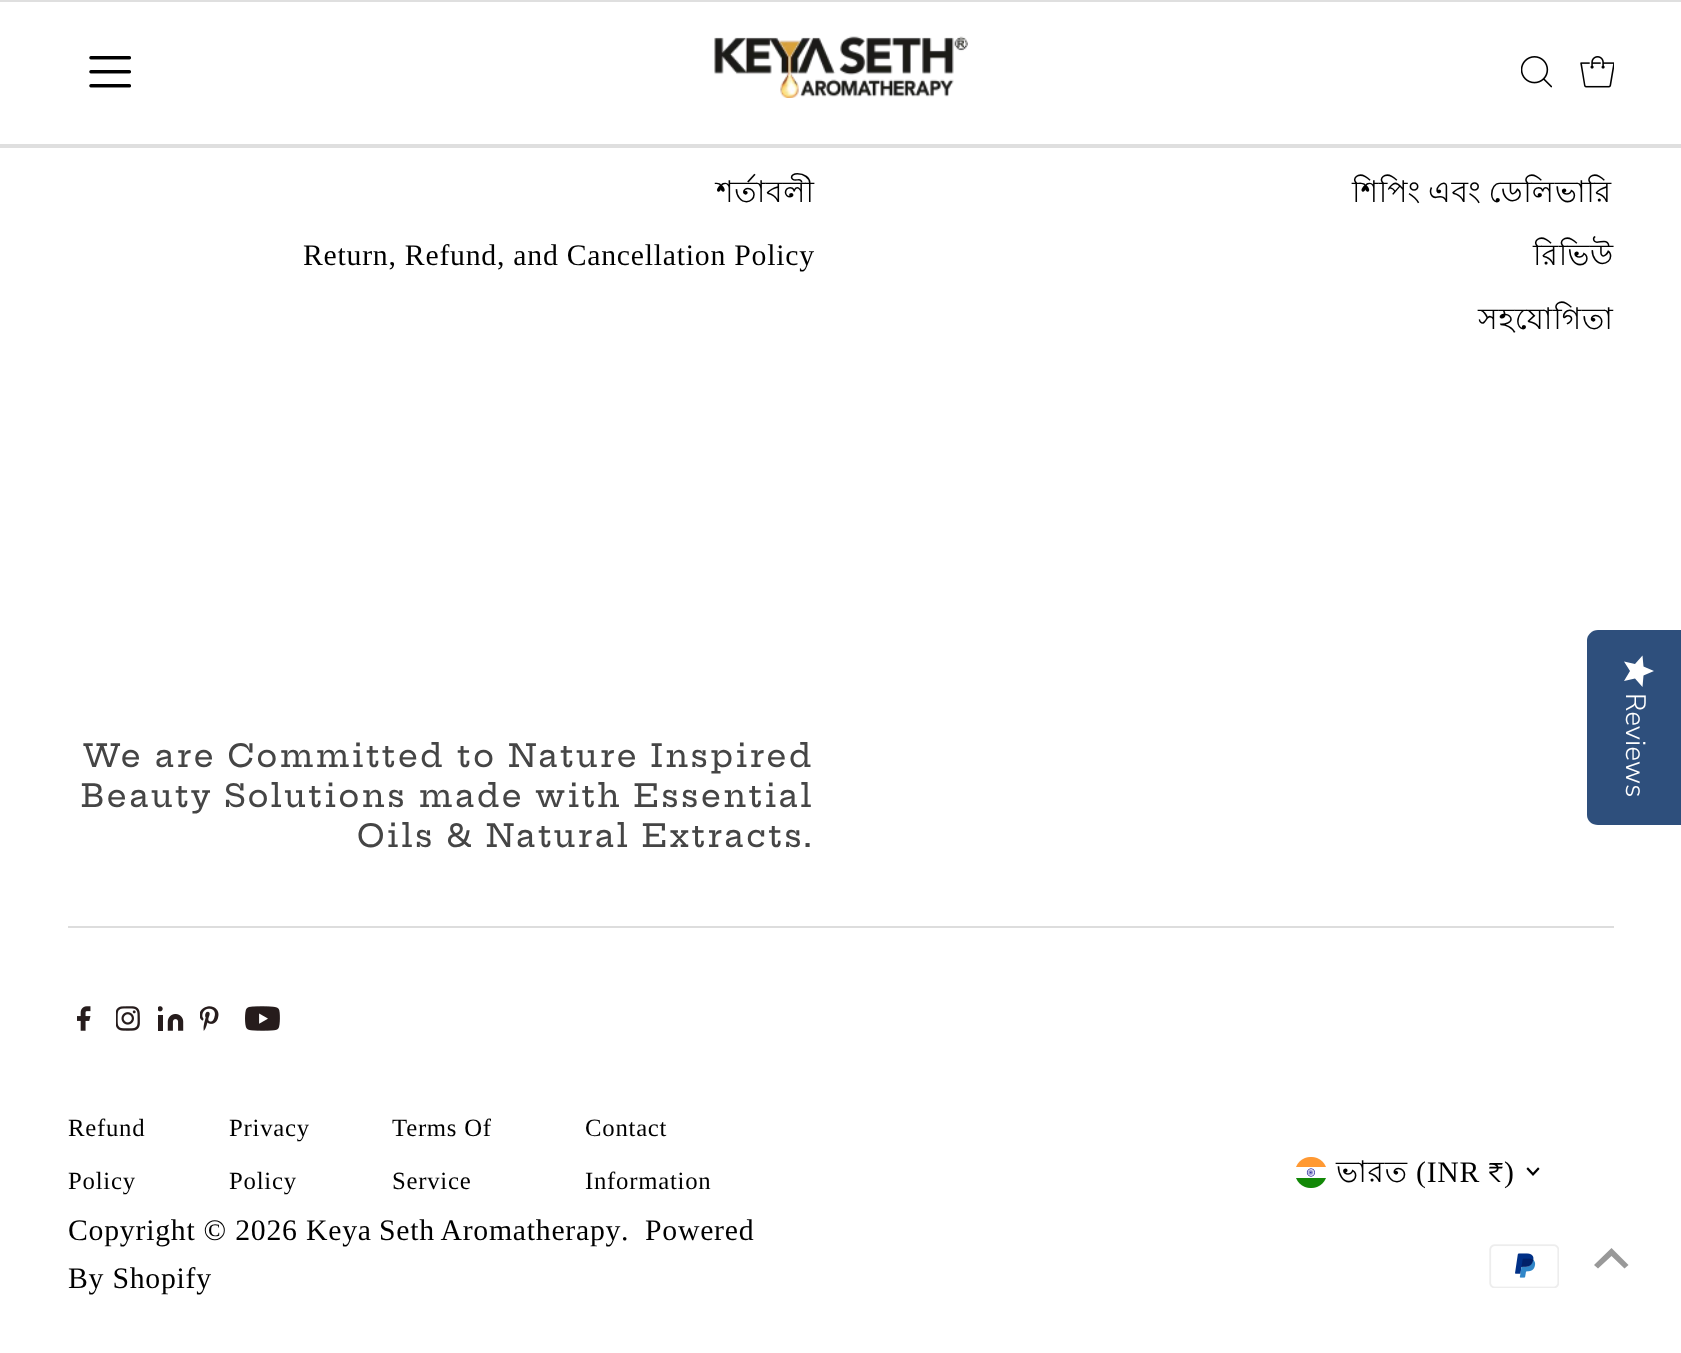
(async () => {
    const canvas = document.querySelector("canvas");
    canvas.width = 1681;
    canvas.height = 1353;
    const context = canvas.getContext("2d");
    context.miterLimit = 4;
    context.fontKerning = "normal";
    function write(s, x, y, font, color) {
        context.font = font;
        context.fillStyle = color;
        context.fillText(s, x, y);
    }
    function block(x, y, w, h, color) {
        context.fillStyle = color;
        context.fillRect(x, y, w, h);
    }
    async function photo(src, x, y, w, h) {
        const img = new Image();
        img.src = src;
        await img.decode();
        context.drawImage(img, x, y, w, h);
    }
    let gradient;

    block(0, 0, 1681, 1353, "rgb(255, 255, 255)");
    block(0, 0, 1681, 2, "rgb(223, 223, 223)");
    block(0, 144, 1681, 4, "rgb(223, 223, 223)");
    await photo("media/1.png", 89, 56, 42, 32);
    await photo("media/2.png", 714, 36, 254, 62);
    await photo("media/3.png", 1521, 56, 31, 32);
    await photo("media/4.png", 1580, 56, 34, 32);
    context.letterSpacing = "0.75px";
    write("শর্তাবলী", 716, 202, "29.75px Lohit Bengali", "rgb(0, 0, 0)");
    write("Return, Refund, and Cancellation Policy", 303, 265, "29.75px Liberation Serif", "rgb(0, 0, 0)");
    context.wordSpacing = "-2px";
    write("শিপিং এবং ডেলিভারি", 1352, 202, "29.75px Lohit Bengali", "rgb(0, 0, 0)");
    context.wordSpacing = "0px";
    write("রিভিউ", 1533, 265, "29.75px Lohit Bengali", "rgb(0, 0, 0)");
    write("সহযোগিতা", 1478, 329, "29.75px Lohit Bengali", "rgb(0, 0, 0)");
    context.letterSpacing = "2.35px";
    write("We are Committed to Nature Inspired", 83, 767, "500 31.5px Hepta Slab", "rgb(69, 69, 69)");
    write("Beauty Solutions made with Essential", 81, 807, "500 31.5px Hepta Slab", "rgb(69, 69, 69)");
    write("Oils & Natural Extracts.", 357, 847, "500 31.5px Hepta Slab", "rgb(69, 69, 69)");
    block(68, 926, 1546, 2, "rgb(221, 221, 221)");
    await photo("media/5.png", 77, 1006, 14, 25);
    await photo("media/6.png", 116, 1006, 24, 25);
    await photo("media/7.png", 158, 1006, 26, 25);
    await photo("media/8.png", 200, 1006, 19, 25);
    await photo("media/9.png", 245, 1006, 35, 25);
    context.letterSpacing = "0.75px";
    write("Refund", 68, 1136, "24.75px Liberation Serif", "rgb(0, 0, 0)");
    write("Policy", 68, 1189, "24.75px Liberation Serif", "rgb(0, 0, 0)");
    write("Privacy", 229, 1136, "24.75px Liberation Serif", "rgb(0, 0, 0)");
    write("Policy", 229, 1189, "24.75px Liberation Serif", "rgb(0, 0, 0)");
    write("Terms Of", 392, 1136, "24.75px Liberation Serif", "rgb(0, 0, 0)");
    write("Service", 392, 1189, "24.75px Liberation Serif", "rgb(0, 0, 0)");
    write("Contact", 585, 1136, "24.75px Liberation Serif", "rgb(0, 0, 0)");
    write("Information", 585, 1189, "24.75px Liberation Serif", "rgb(0, 0, 0)");
    write("Copyright © 2026", 68, 1240, "29.75px Liberation Serif", "rgb(0, 0, 0)");
    context.wordSpacing = "-1px";
    write("Keya Seth Aromatherapy", 306, 1240, "29.75px Liberation Serif", "rgb(0, 0, 0)");
    context.wordSpacing = "0px";
    write(".", 621, 1240, "29.75px Liberation Serif", "rgb(0, 0, 0)");
    write("Powered", 645, 1240, "29.75px Liberation Serif", "rgb(0, 0, 0)");
    write("By Shopify", 68, 1288, "29.75px Liberation Serif", "rgb(0, 0, 0)");
    await photo("media/10.png", 1296, 1157, 30, 31);
    write("ভারত", 1336, 1182, "29.75px Lohit Bengali", "rgb(0, 0, 0)");
    write("(INR", 1416, 1182, "29.75px Liberation Serif", "rgb(0, 0, 0)");
    write("₹", 1488, 1182, "29.75px Lohit Bengali", "rgb(0, 0, 0)");
    write(")", 1504, 1182, "29.75px Liberation Serif", "rgb(0, 0, 0)");
    await photo("media/11.png", 1526, 1167, 14, 9);
    await photo("media/12.png", 1489, 1244, 70, 44);
    context.fillStyle = "rgb(153, 153, 153)";
    context.beginPath();
    context.moveTo(1611.5, 1248);
    context.lineTo(1594, 1265);
    context.lineTo(1598, 1268.5);
    context.lineTo(1611.5, 1256);
    context.lineTo(1624.5, 1268.5);
    context.lineTo(1628.5, 1265);
    context.closePath();
    context.fill();
    context.fillStyle = "rgb(46, 79, 124)";
    context.beginPath();
    context.moveTo(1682, 630);
    context.lineTo(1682, 825);
    context.lineTo(1598, 825);
    context.bezierCurveTo(1592, 825, 1587, 821, 1587, 815);
    context.lineTo(1587, 640);
    context.bezierCurveTo(1587, 635, 1592, 630, 1598, 630);
    context.closePath();
    context.fill();
    gradient = context.createLinearGradient(1654, 655, 1654, 687);
    gradient.addColorStop(1, "rgb(255, 255, 255)");
    gradient.addColorStop(1, "rgb(234, 234, 234)");
    context.fillStyle = gradient;
    context.beginPath();
    context.moveTo(1630, 671);
    context.lineTo(1624, 681);
    context.lineTo(1635, 678.5);
    context.lineTo(1642.5, 687);
    context.lineTo(1643.5, 675.5);
    context.lineTo(1654, 671);
    context.lineTo(1643.5, 666.5);
    context.lineTo(1642.5, 655.5);
    context.lineTo(1635, 664);
    context.lineTo(1624, 661.5);
    context.closePath();
    context.fill();
    context.letterSpacing = "0px";
    context.font = "300 28px Nunito Sans";
    context.fillStyle = "rgb(255, 255, 255)";
    context.save();
    context.translate(1626, 693);
    context.rotate(90 * Math.PI / 180);
    context.fillText("Reviews", 0, 0);
    context.restore();
})();
